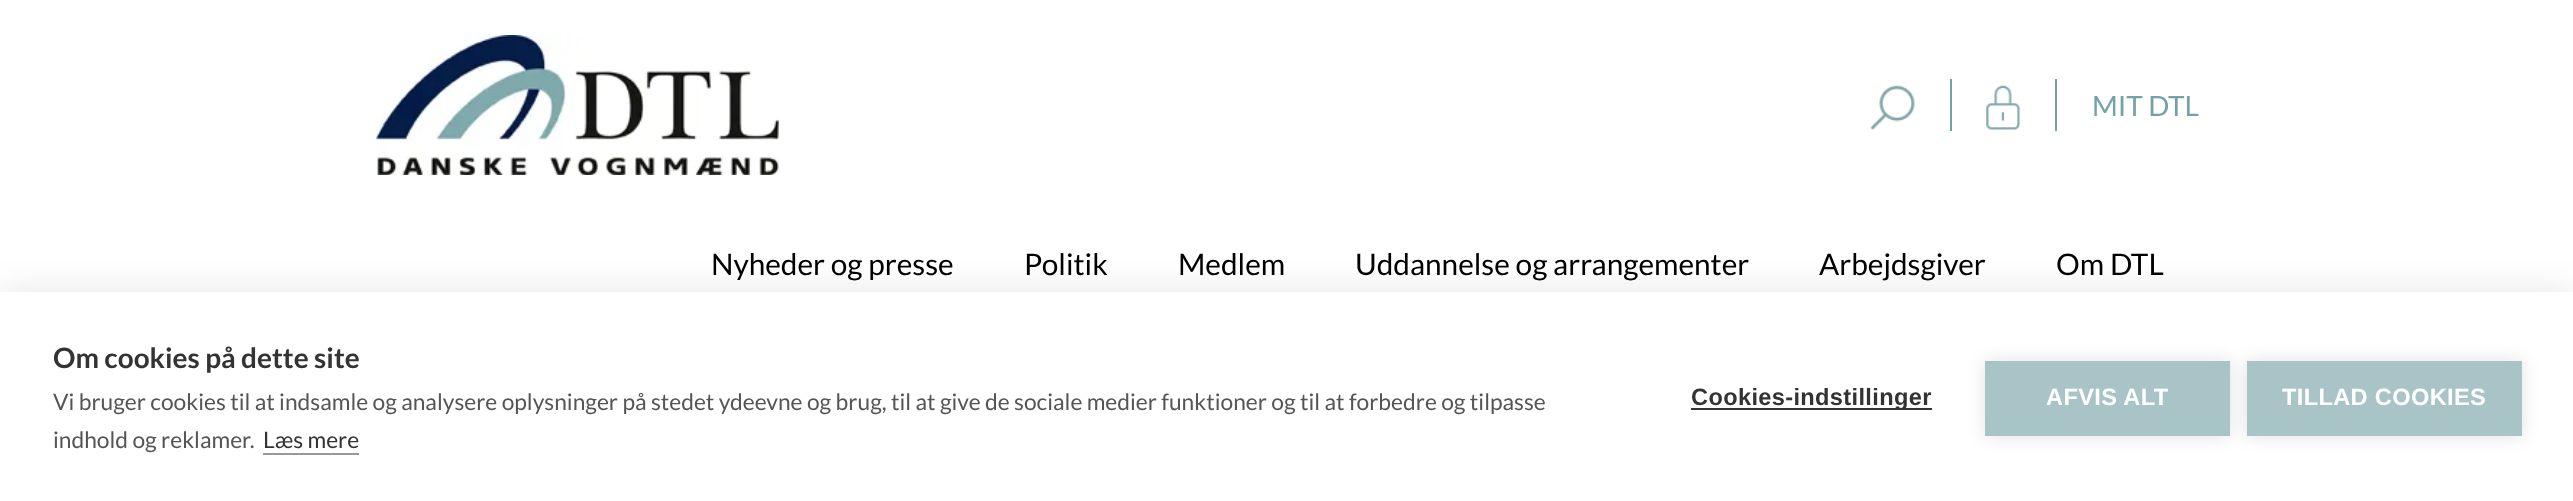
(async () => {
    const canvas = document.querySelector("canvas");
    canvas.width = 2573;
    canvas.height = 501;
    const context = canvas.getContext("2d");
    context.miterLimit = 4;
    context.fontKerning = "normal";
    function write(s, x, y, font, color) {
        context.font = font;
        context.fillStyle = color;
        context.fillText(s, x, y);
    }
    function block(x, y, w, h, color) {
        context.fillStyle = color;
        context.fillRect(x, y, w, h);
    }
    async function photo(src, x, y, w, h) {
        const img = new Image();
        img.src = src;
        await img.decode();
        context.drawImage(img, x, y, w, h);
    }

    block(0, 0, 2573, 501, "rgb(255, 255, 255)");
    await photo("media/1.png", 376, 35, 403, 140);
    await photo("media/2.png", 1870, 85, 45, 45);
    block(1950, 79, 2, 52, "rgb(116, 162, 167)");
    await photo("media/3.png", 1986, 85, 34, 45);
    block(2055, 79, 2, 52, "rgb(116, 162, 167)");
    write("MIT DTL", 2092, 116, "28px Lato", "rgb(116, 162, 167)");
    write("Nyheder og presse", 711, 275, "29.75px Lato", "rgb(0, 0, 0)");
    write("Politik", 1024, 275, "29.75px Lato", "rgb(0, 0, 0)");
    write("Medlem", 1178, 275, "29.75px Lato", "rgb(0, 0, 0)");
    write("Uddannelse og arrangementer", 1355, 275, "29.75px Lato", "rgb(0, 0, 0)");
    write("Arbejdsgiver", 1819, 275, "29.75px Lato", "rgb(0, 0, 0)");
    write("Om DTL", 2056, 275, "29.75px Lato", "rgb(0, 0, 0)");
    context.fillStyle = "rgba(0, 0, 0, 0.1)";
    context.filter = "blur(17.5px)";
    context.beginPath();
    context.rect(0, 292, 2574, 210);
    context.fill();
    context.filter = "none";
    block(0, 292, 2573, 209, "rgb(255, 255, 255)");
    write("Om cookies på dette site", 53, 368, "bold 28px Lato", "rgb(51, 51, 51)");
    write("Vi bruger cookies til at indsamle og analysere oplysninger på stedet ydeevne og brug, til at give de sociale medier funktioner og til at forbedre og tilpasse", 53, 410, "22.75px Lato", "rgb(85, 85, 85)");
    write("indhold og reklamer.", 53, 448, "22.75px Lato", "rgb(85, 85, 85)");
    write("Læs mere", 263, 448, "22.75px Lato", "rgb(51, 51, 51)");
    block(263, 453, 96, 2, "rgb(153, 153, 153)");
    block(1691, 408, 241, 2, "rgb(51, 51, 51)");
    context.letterSpacing = "0.35px";
    write("Cookies-indstillinger", 1691, 405, "bold 23.6px Liberation Sans", "rgb(51, 51, 51)");
    context.fillStyle = "rgba(0, 0, 0, 0.12)";
    context.filter = "blur(9px)";
    context.beginPath();
    context.rect(1985, 361, 245, 75);
    context.fill();
    context.filter = "none";
    block(1985, 361, 245, 75, "rgb(169, 196, 199)");
    write("AFVIS ALT", 2046, 405, "bold 23.6px Liberation Sans", "rgb(255, 255, 255)");
    context.fillStyle = "rgba(0, 0, 0, 0.12)";
    context.filter = "blur(9px)";
    context.beginPath();
    context.rect(2247, 361, 275, 75);
    context.fill();
    context.filter = "none";
    block(2247, 361, 275, 75, "rgb(169, 196, 199)");
    write("TILLAD COOKIES", 2282, 405, "bold 23.6px Liberation Sans", "rgb(255, 255, 255)");
})();
